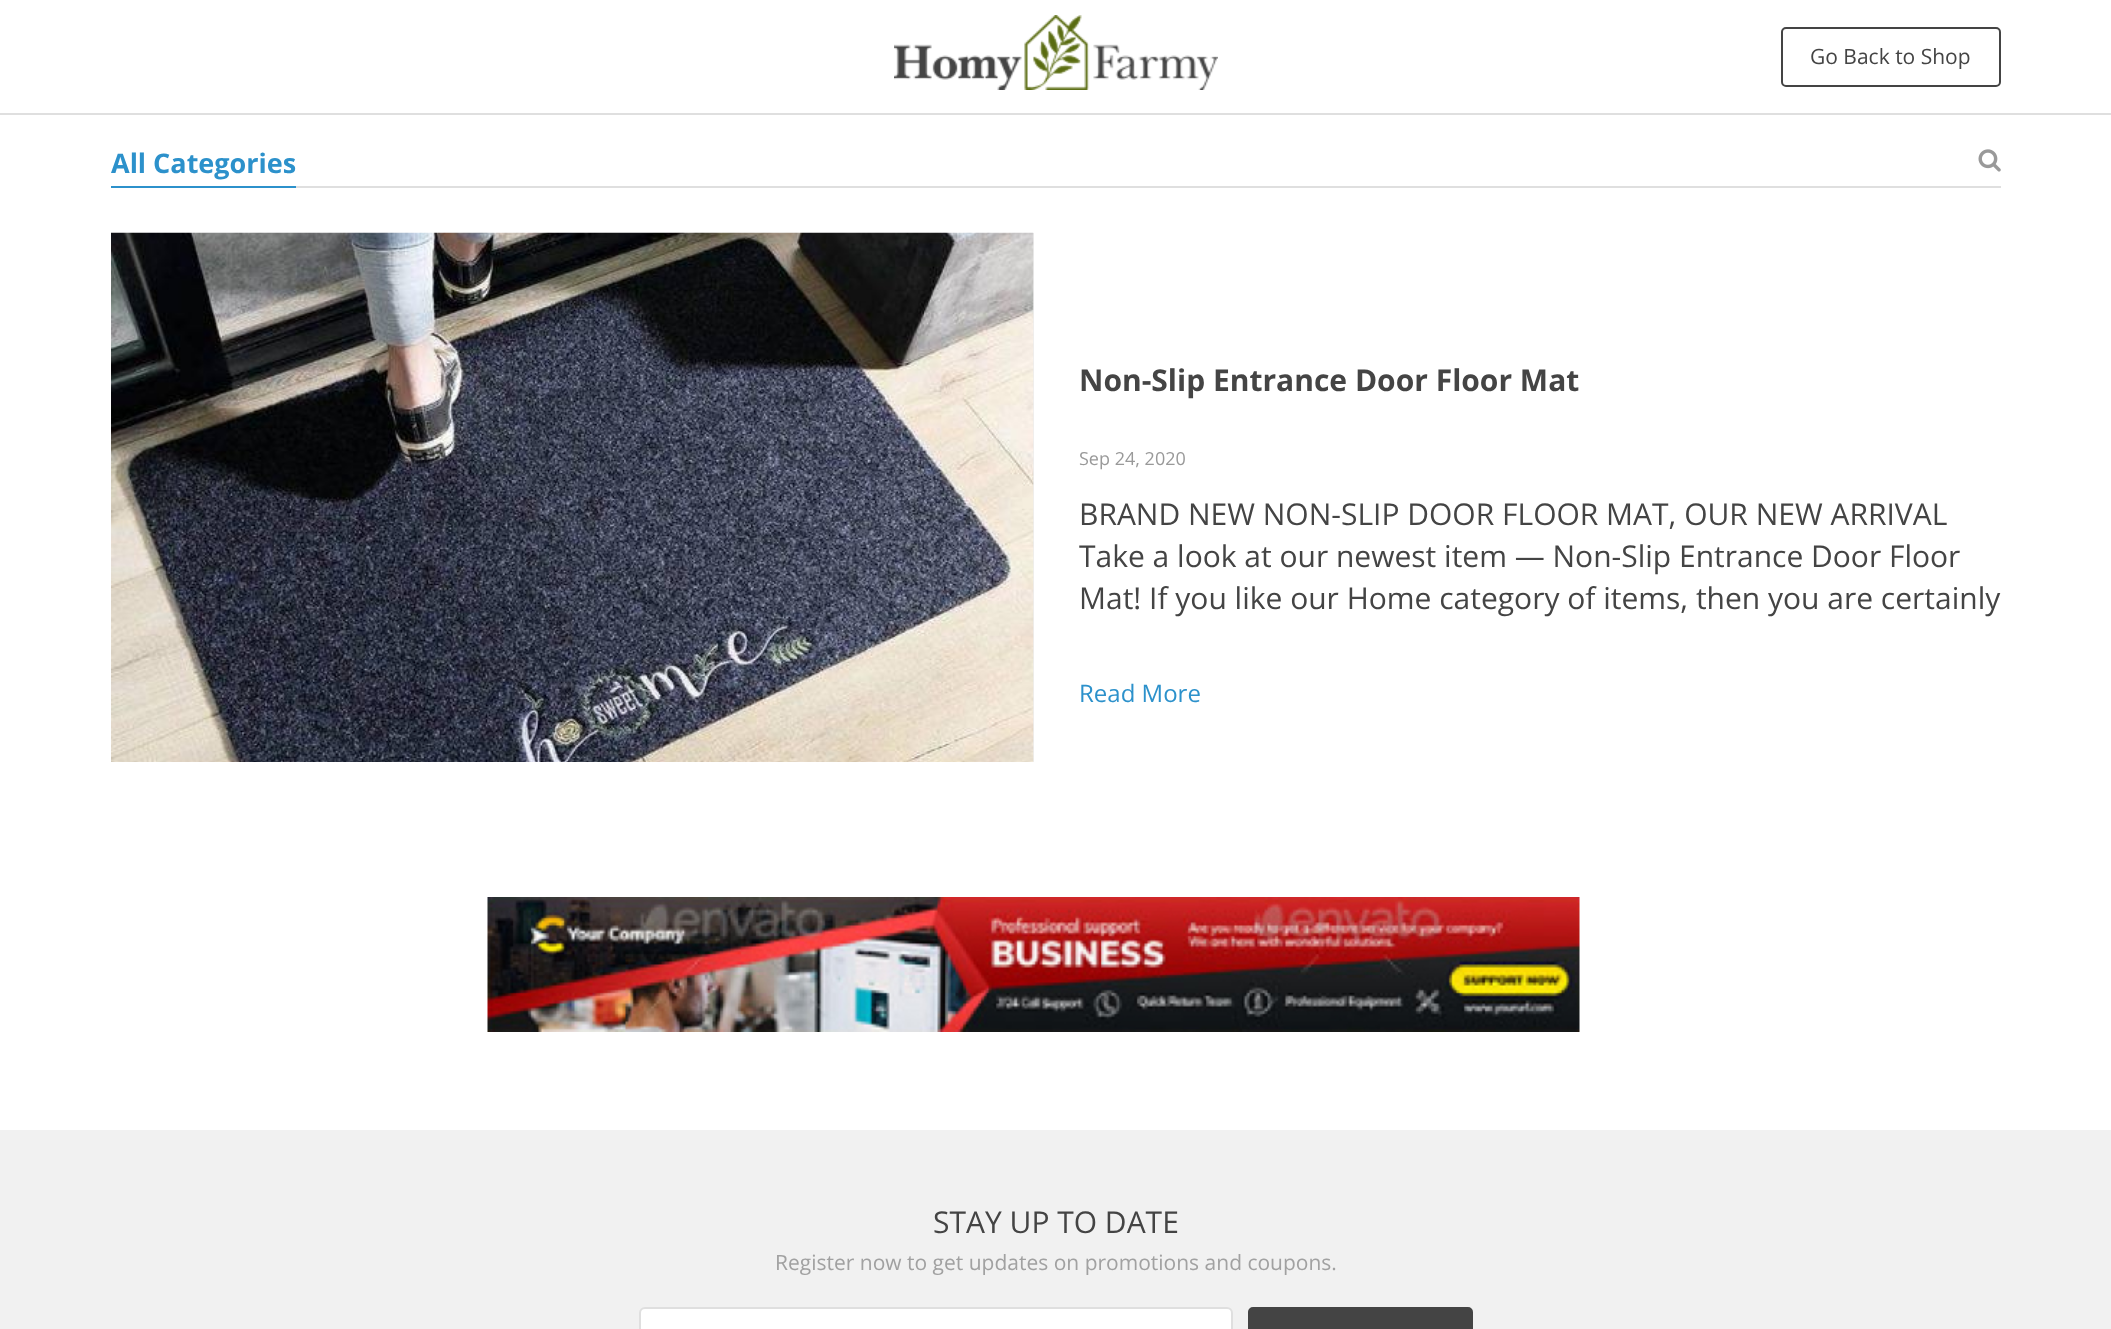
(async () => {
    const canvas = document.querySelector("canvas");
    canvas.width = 2111;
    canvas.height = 1329;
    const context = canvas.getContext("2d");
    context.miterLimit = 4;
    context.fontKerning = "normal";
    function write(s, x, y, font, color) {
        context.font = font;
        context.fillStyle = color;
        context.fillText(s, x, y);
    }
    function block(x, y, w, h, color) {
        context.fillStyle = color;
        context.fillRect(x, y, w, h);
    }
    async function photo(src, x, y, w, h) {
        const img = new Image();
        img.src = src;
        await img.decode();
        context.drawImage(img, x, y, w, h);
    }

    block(0, 0, 2111, 1329, "rgb(255, 255, 255)");
    block(0, 113, 2111, 2, "rgb(223, 223, 223)");
    await photo("media/1.png", 894, 15, 324, 75);
    context.beginPath();
    context.roundRect(1782, 28, 218, 58, 4);
    context.strokeStyle = "rgb(68, 68, 68)";
    context.lineWidth = 2;
    context.stroke();
    write("Go Back to Shop", 1810, 64, "21px Open Sans", "rgb(68, 68, 68)");
    block(296, 186, 1705, 2, "rgb(223, 223, 223)");
    write("All Categories", 111, 173, "bold 27px Open Sans", "rgb(44, 145, 203)");
    block(111, 186, 185, 2, "rgb(44, 145, 203)");
    await photo("media/2.png", 1978, 149, 23, 23);
    block(1033, 233, 1, 529, "rgb(238, 238, 238)");
    await photo("media/3.png", 111, 232, 923, 530);
    write("Non-Slip Entrance Door Floor Mat", 1079, 391, "bold 30px Open Sans", "rgb(68, 68, 68)");
    write("Sep 24, 2020", 1079, 465, "18px Open Sans", "rgb(153, 153, 153)");
    write("BRAND NEW NON-SLIP DOOR FLOOR MAT, OUR NEW ARRIVAL", 1079, 525, "30px Open Sans", "rgb(68, 68, 68)");
    context.save();
    context.beginPath();
    context.rect(1079, 494, 922, 130);
    context.clip();
    write("Take a look at our newest item — Non-Slip Entrance Door Floor", 1079, 567, "30px Open Sans", "rgb(68, 68, 68)");
    context.restore();
    write("Mat! If you like our Home category of items, then you are certainly", 1079, 609, "30px Open Sans", "rgb(68, 68, 68)");
    write("Read More", 1079, 702, "24px Open Sans", "rgb(44, 145, 203)");
    await photo("media/4.png", 487, 897, 1093, 135);
    block(0, 1130, 2111, 199, "rgb(241, 241, 241)");
    write("STAY UP TO DATE", 933, 1233, "30px Open Sans", "rgb(68, 68, 68)");
    write("Register now to get updates on promotions and coupons.", 775, 1270, "21px Open Sans", "rgb(161, 161, 161)");
    context.fillStyle = "rgb(255, 255, 255)";
    context.beginPath();
    context.roundRect(640, 1308, 592, 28, 5);
    context.fill();
    context.strokeStyle = "rgb(223, 223, 223)";
    context.stroke();
    context.fillStyle = "rgb(68, 68, 68)";
    context.beginPath();
    context.roundRect(1249, 1308, 223, 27, 4);
    context.fill();
    context.strokeStyle = "rgb(68, 68, 68)";
    context.stroke();
})();
